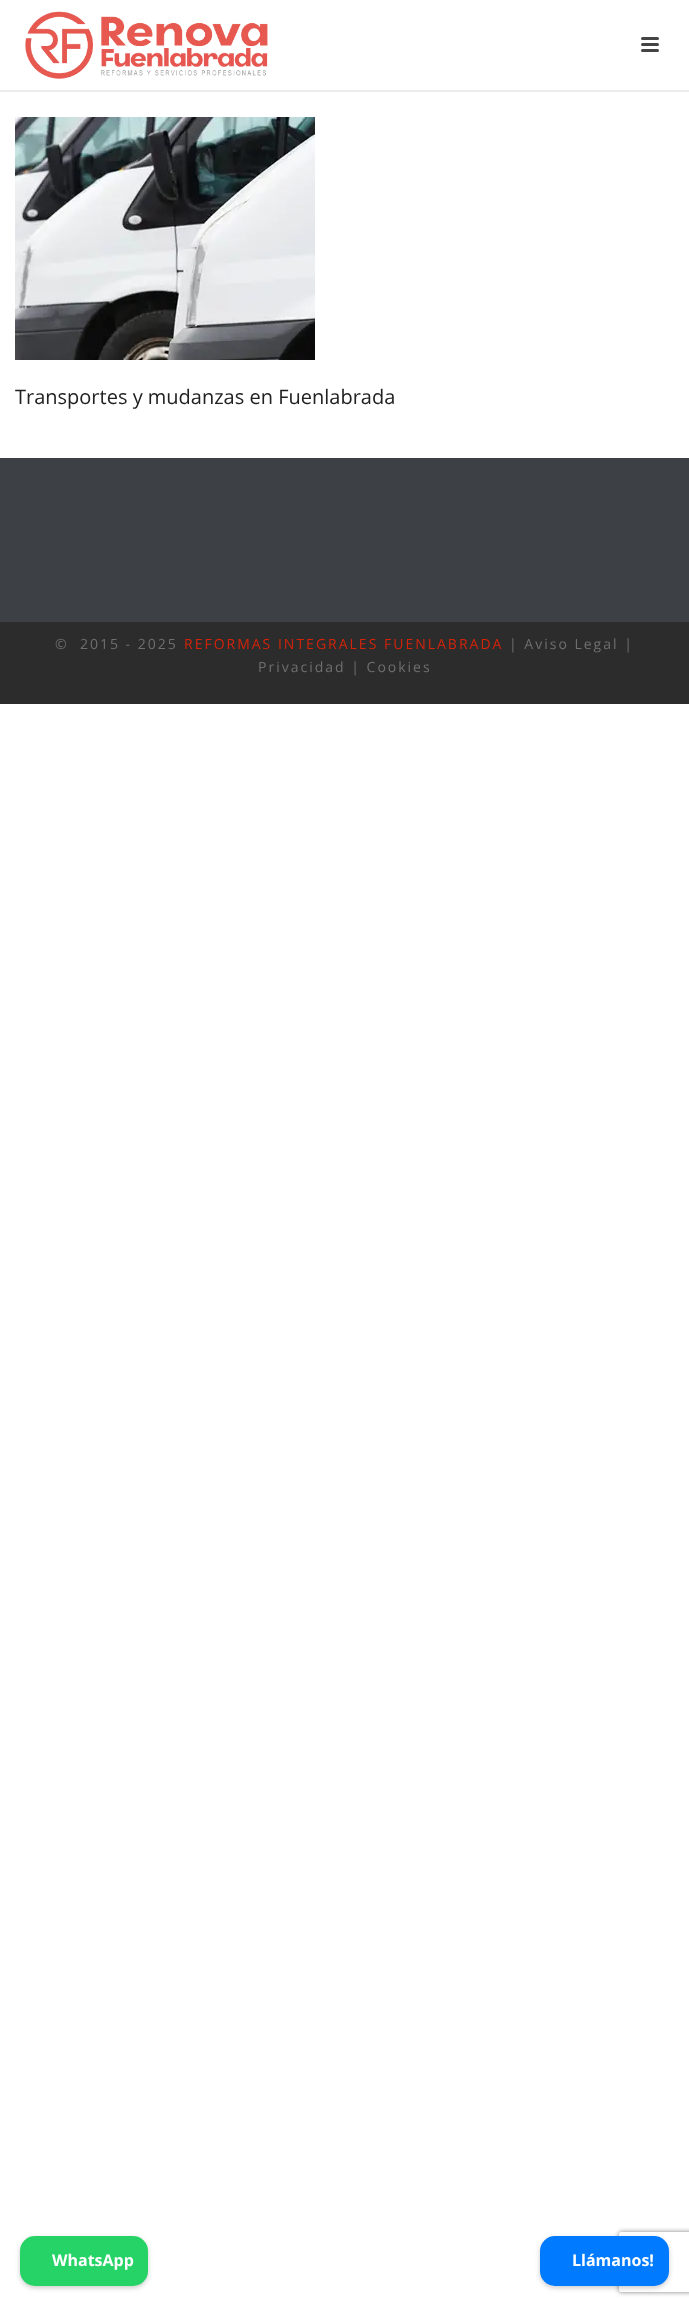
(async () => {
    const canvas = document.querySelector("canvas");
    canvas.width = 689;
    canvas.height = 2306;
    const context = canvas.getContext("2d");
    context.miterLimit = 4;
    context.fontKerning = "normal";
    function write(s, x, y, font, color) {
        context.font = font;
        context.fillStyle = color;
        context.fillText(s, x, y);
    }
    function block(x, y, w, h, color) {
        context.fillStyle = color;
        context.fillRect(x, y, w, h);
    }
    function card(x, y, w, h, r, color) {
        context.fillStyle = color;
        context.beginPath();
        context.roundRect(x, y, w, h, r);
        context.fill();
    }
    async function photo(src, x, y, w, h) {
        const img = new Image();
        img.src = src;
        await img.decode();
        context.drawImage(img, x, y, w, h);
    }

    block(0, 0, 689, 2306, "rgb(255, 255, 255)");
    block(0, 90, 689, 2, "rgb(237, 237, 237)");
    await photo("media/1.png", 25, 11, 243, 68);
    card(641, 37, 18, 3, 1.5, "rgb(68, 68, 68)");
    card(641, 43, 18, 3, 1.5, "rgb(68, 68, 68)");
    card(641, 49, 18, 3, 1.5, "rgb(68, 68, 68)");
    await photo("media/2.png", 15, 117, 300, 243);
    write("Transportes y mudanzas en Fuenlabrada", 15, 404, "20px Open Sans", "rgb(33, 33, 33)");
    block(0, 458, 689, 164, "rgb(61, 64, 69)");
    block(0, 622, 689, 82, "rgb(44, 44, 44)");
    context.letterSpacing = "2px";
    write("©  2015 - 2025", 55, 649, "14px Open Sans", "rgb(111, 111, 111)");
    write("REFORMAS INTEGRALES FUENLABRADA", 184, 649, "14px Open Sans", "rgb(213, 35, 9)");
    write("| Aviso Legal |", 509, 649, "14px Open Sans", "rgb(111, 111, 111)");
    write("Privacidad | Cookies", 258, 672, "14px Open Sans", "rgb(111, 111, 111)");
    context.fillStyle = "rgba(0, 0, 0, 0.2)";
    context.filter = "blur(2.5px)";
    context.beginPath();
    context.roundRect(20, 2238, 128, 50, 15);
    context.fill();
    context.filter = "none";
    card(20, 2236, 128, 50, 15, "rgb(37, 211, 102)");
    context.letterSpacing = "0px";
    write("WhatsApp", 52, 2266, "bold 16px Open Sans", "rgb(255, 255, 255)");
    context.save();
    context.beginPath();
    context.moveTo(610, 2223);
    context.lineTo(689, 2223);
    context.lineTo(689, 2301);
    context.lineTo(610, 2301);
    context.closePath();
    context.moveTo(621, 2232);
    context.lineTo(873, 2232);
    context.bezierCurveTo(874, 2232, 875, 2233, 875, 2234);
    context.lineTo(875, 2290);
    context.bezierCurveTo(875, 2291, 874, 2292, 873, 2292);
    context.lineTo(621, 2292);
    context.bezierCurveTo(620, 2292, 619, 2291, 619, 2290);
    context.lineTo(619, 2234);
    context.bezierCurveTo(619, 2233, 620, 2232, 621, 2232);
    context.closePath();
    context.clip("evenodd");
    context.fillStyle = "rgb(128, 128, 128)";
    context.filter = "blur(2.5px)";
    context.beginPath();
    context.roundRect(619, 2232, 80, 60, 2);
    context.fill();
    context.filter = "none";
    context.restore();
    context.fillStyle = "rgba(0, 0, 0, 0.2)";
    context.filter = "blur(2.5px)";
    context.beginPath();
    context.roundRect(540, 2238, 129, 50, 15);
    context.fill();
    context.filter = "none";
    card(540, 2236, 129, 50, 15, "rgb(0, 123, 255)");
    write("Llámanos!", 572, 2266, "bold 16px Open Sans", "rgb(255, 255, 255)");
})();
